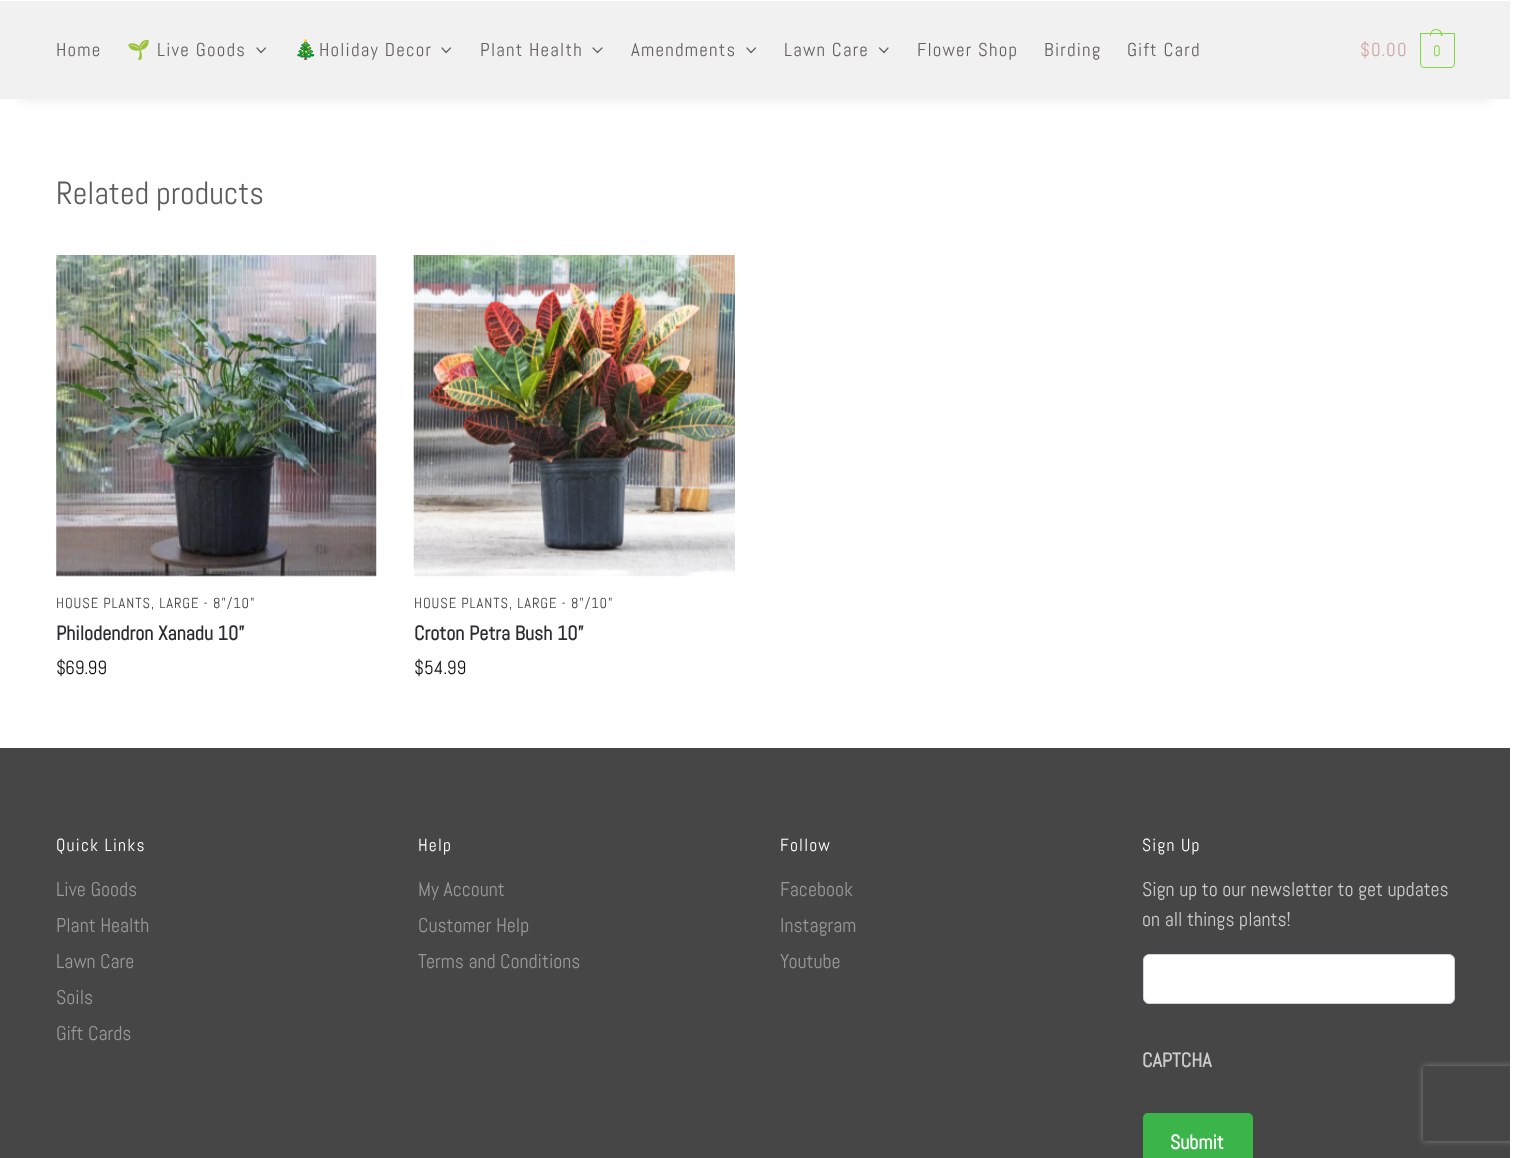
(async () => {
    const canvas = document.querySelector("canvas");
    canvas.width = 1528;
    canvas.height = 1158;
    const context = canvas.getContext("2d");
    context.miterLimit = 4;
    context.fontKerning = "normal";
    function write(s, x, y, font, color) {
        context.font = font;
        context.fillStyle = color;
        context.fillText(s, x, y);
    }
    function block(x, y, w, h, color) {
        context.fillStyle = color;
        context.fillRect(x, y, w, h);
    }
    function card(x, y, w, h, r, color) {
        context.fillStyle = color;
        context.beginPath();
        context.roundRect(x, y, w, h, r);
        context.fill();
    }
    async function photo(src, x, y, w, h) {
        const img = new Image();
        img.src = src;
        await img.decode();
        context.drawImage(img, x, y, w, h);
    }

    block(0, 0, 1528, 1158, "rgb(70, 70, 70)");
    block(0, 99, 1510, 649, "rgb(255, 255, 255)");
    context.fillStyle = "rgba(0, 0, 0, 0.1)";
    context.filter = "blur(6px)";
    context.beginPath();
    context.rect(19, 38, 1472, 61);
    context.fill();
    context.filter = "none";
    block(0, 1, 1510, 98, "rgb(241, 241, 241)");
    block(0, 0, 1510, 1, "rgb(255, 255, 255)");
    context.letterSpacing = "1.25px";
    write("Home", 56, 56, "18.75px Abel", "rgb(101, 96, 96)");
    write("🌱", 127, 56, "18.75px Noto Color Emoji", "rgb(101, 96, 96)");
    write("Live Goods", 157, 56, "18.75px Abel", "rgb(101, 96, 96)");
    context.beginPath();
    context.moveTo(265.5, 48);
    context.lineTo(261, 52.5);
    context.lineTo(257, 48);
    context.strokeStyle = "rgb(101, 96, 96)";
    context.lineWidth = 1.2;
    context.lineCap = "round";
    context.lineJoin = "round";
    context.stroke();
    write("🎄", 294, 56, "18.75px Noto Color Emoji", "rgb(101, 96, 96)");
    write("Holiday Decor", 319, 56, "18.75px Abel", "rgb(101, 96, 96)");
    context.beginPath();
    context.moveTo(450.5, 48);
    context.lineTo(446, 52.5);
    context.lineTo(442, 48);
    context.stroke();
    write("Plant Health", 480, 56, "18.75px Abel", "rgb(101, 96, 96)");
    context.beginPath();
    context.moveTo(602, 48);
    context.lineTo(597.5, 52.5);
    context.lineTo(593, 48);
    context.stroke();
    write("Amendments", 631, 56, "18.75px Abel", "rgb(101, 96, 96)");
    context.beginPath();
    context.moveTo(755.5, 48);
    context.lineTo(751, 52.5);
    context.lineTo(747, 48);
    context.stroke();
    write("Lawn Care", 784, 56, "18.75px Abel", "rgb(101, 96, 96)");
    context.beginPath();
    context.moveTo(888, 48);
    context.lineTo(884, 52.5);
    context.lineTo(879.5, 48);
    context.stroke();
    write("Flower Shop", 917, 56, "18.75px Abel", "rgb(101, 96, 96)");
    write("Birding", 1044, 56, "18.75px Abel", "rgb(101, 96, 96)");
    write("Gift Card", 1127, 56, "18.75px Abel", "rgb(101, 96, 96)");
    write("$0.00", 1360, 56, "18.75px Abel", "rgb(206, 166, 164)");
    context.beginPath();
    context.roundRect(1420.5, 33.5, 34, 34, [0, 0, 3.5, 3.5]);
    context.strokeStyle = "rgb(129, 215, 66)";
    context.lineWidth = 1;
    context.lineJoin = "miter";
    context.stroke();
    context.fillStyle = "rgb(129, 215, 66)";
    context.beginPath();
    context.moveTo(1436, 29);
    context.bezierCurveTo(1440.5, 29, 1442.5, 32.5, 1442.5, 36);
    context.lineTo(1430, 36);
    context.bezierCurveTo(1430, 32.5, 1432, 29, 1436, 29);
    context.closePath();
    context.moveTo(1436, 30);
    context.bezierCurveTo(1440, 30, 1441, 33, 1441, 36);
    context.lineTo(1431, 36);
    context.bezierCurveTo(1431, 33, 1432.5, 30, 1436, 30);
    context.closePath();
    context.fill("evenodd");
    context.letterSpacing = "-1px";
    write("0", 1433, 56, "15px Abel", "rgb(129, 215, 66)");
    context.save();
    context.beginPath();
    context.moveTo(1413, 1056);
    context.lineTo(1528, 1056);
    context.lineTo(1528, 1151);
    context.lineTo(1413, 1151);
    context.closePath();
    context.moveTo(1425.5, 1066);
    context.lineTo(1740.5, 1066);
    context.bezierCurveTo(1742, 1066, 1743, 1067, 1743, 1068.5);
    context.lineTo(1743, 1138.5);
    context.bezierCurveTo(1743, 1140, 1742, 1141, 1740.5, 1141);
    context.lineTo(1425.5, 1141);
    context.bezierCurveTo(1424, 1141, 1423, 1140, 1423, 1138.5);
    context.lineTo(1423, 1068.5);
    context.bezierCurveTo(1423, 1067, 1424, 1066, 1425.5, 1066);
    context.closePath();
    context.clip("evenodd");
    context.fillStyle = "rgb(128, 128, 128)";
    context.filter = "blur(3px)";
    context.beginPath();
    context.roundRect(1423, 1066, 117, 75, 2.5);
    context.fill();
    context.filter = "none";
    context.restore();
    block(1510, 0, 18, 1158, "rgb(255, 255, 255)");
    context.letterSpacing = "0px";
    write("Related products", 56, 204, "32px Abel", "rgb(92, 92, 92)");
    await photo("media/1.png", 56, 255, 321, 322);
    context.letterSpacing = "0.9px";
    write("HOUSE PLANTS", 56, 608, "14.5px Abel", "rgb(68, 68, 68)");
    write(", LARGE - 8\"/10\"", 151, 608, "14.5px Abel", "rgb(68, 68, 68)");
    context.letterSpacing = "0px";
    write("Philodendron Xanadu 10”", 56, 640, "bold 20px Abel", "rgb(44, 45, 51)");
    write("$", 56, 674, "19px Abel", "rgb(17, 17, 17)");
    write("69.99", 65, 674, "19px Abel", "rgb(17, 17, 17)");
    await photo("media/2.png", 413, 255, 322, 322);
    context.letterSpacing = "0.9px";
    write("HOUSE PLANTS", 414, 608, "14.5px Abel", "rgb(68, 68, 68)");
    write(", LARGE - 8\"/10\"", 509, 608, "14.5px Abel", "rgb(68, 68, 68)");
    context.letterSpacing = "0px";
    write("Croton Petra Bush 10”", 414, 640, "bold 20px Abel", "rgb(44, 45, 51)");
    write("$", 414, 674, "19px Abel", "rgb(17, 17, 17)");
    write("54.99", 424, 674, "19px Abel", "rgb(17, 17, 17)");
    context.letterSpacing = "1.25px";
    write("Quick Links", 56, 851, "17.5px Abel", "rgb(255, 255, 255)");
    context.letterSpacing = "0px";
    write("Live Goods", 56, 896, "19.9px Abel", "rgb(153, 153, 153)");
    write("Plant Health", 56, 932, "19.9px Abel", "rgb(153, 153, 153)");
    write("Lawn Care", 56, 968, "19.9px Abel", "rgb(153, 153, 153)");
    write("Soils", 56, 1004, "19.9px Abel", "rgb(153, 153, 153)");
    write("Gift Cards", 56, 1040, "19.9px Abel", "rgb(153, 153, 153)");
    context.letterSpacing = "1.25px";
    write("Help", 418, 851, "17.5px Abel", "rgb(255, 255, 255)");
    context.letterSpacing = "0px";
    write("My Account", 418, 896, "19.9px Abel", "rgb(153, 153, 153)");
    write("Customer Help", 418, 932, "19.9px Abel", "rgb(153, 153, 153)");
    write("Terms and Conditions", 418, 968, "19.9px Abel", "rgb(153, 153, 153)");
    context.letterSpacing = "1.25px";
    write("Follow", 780, 851, "17.5px Abel", "rgb(255, 255, 255)");
    context.letterSpacing = "0px";
    write("Facebook", 780, 896, "19.9px Abel", "rgb(153, 153, 153)");
    write("Instagram", 780, 932, "19.9px Abel", "rgb(153, 153, 153)");
    write("Youtube", 780, 968, "19.9px Abel", "rgb(153, 153, 153)");
    context.letterSpacing = "1.25px";
    write("Sign Up", 1142, 851, "17.5px Abel", "rgb(255, 255, 255)");
    context.letterSpacing = "0px";
    write("Sign up to our newsletter to get updates", 1142, 896, "19.9px Abel", "rgb(204, 204, 204)");
    write("on all things plants!", 1142, 926, "19.9px Abel", "rgb(204, 204, 204)");
    context.fillStyle = "rgb(255, 255, 255)";
    context.beginPath();
    context.roundRect(1143.5, 954.5, 311, 49, 5.5);
    context.fill();
    context.strokeStyle = "rgb(210, 214, 220)";
    context.stroke();
    write("CAPTCHA", 1142, 1067, "bold 20px Abel", "rgb(204, 204, 204)");
    card(1143, 1113, 110, 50, 5, "rgb(59, 181, 74)");
    write("Submit", 1170, 1149, "bold 19.9px Abel", "rgb(255, 255, 255)");
})();
